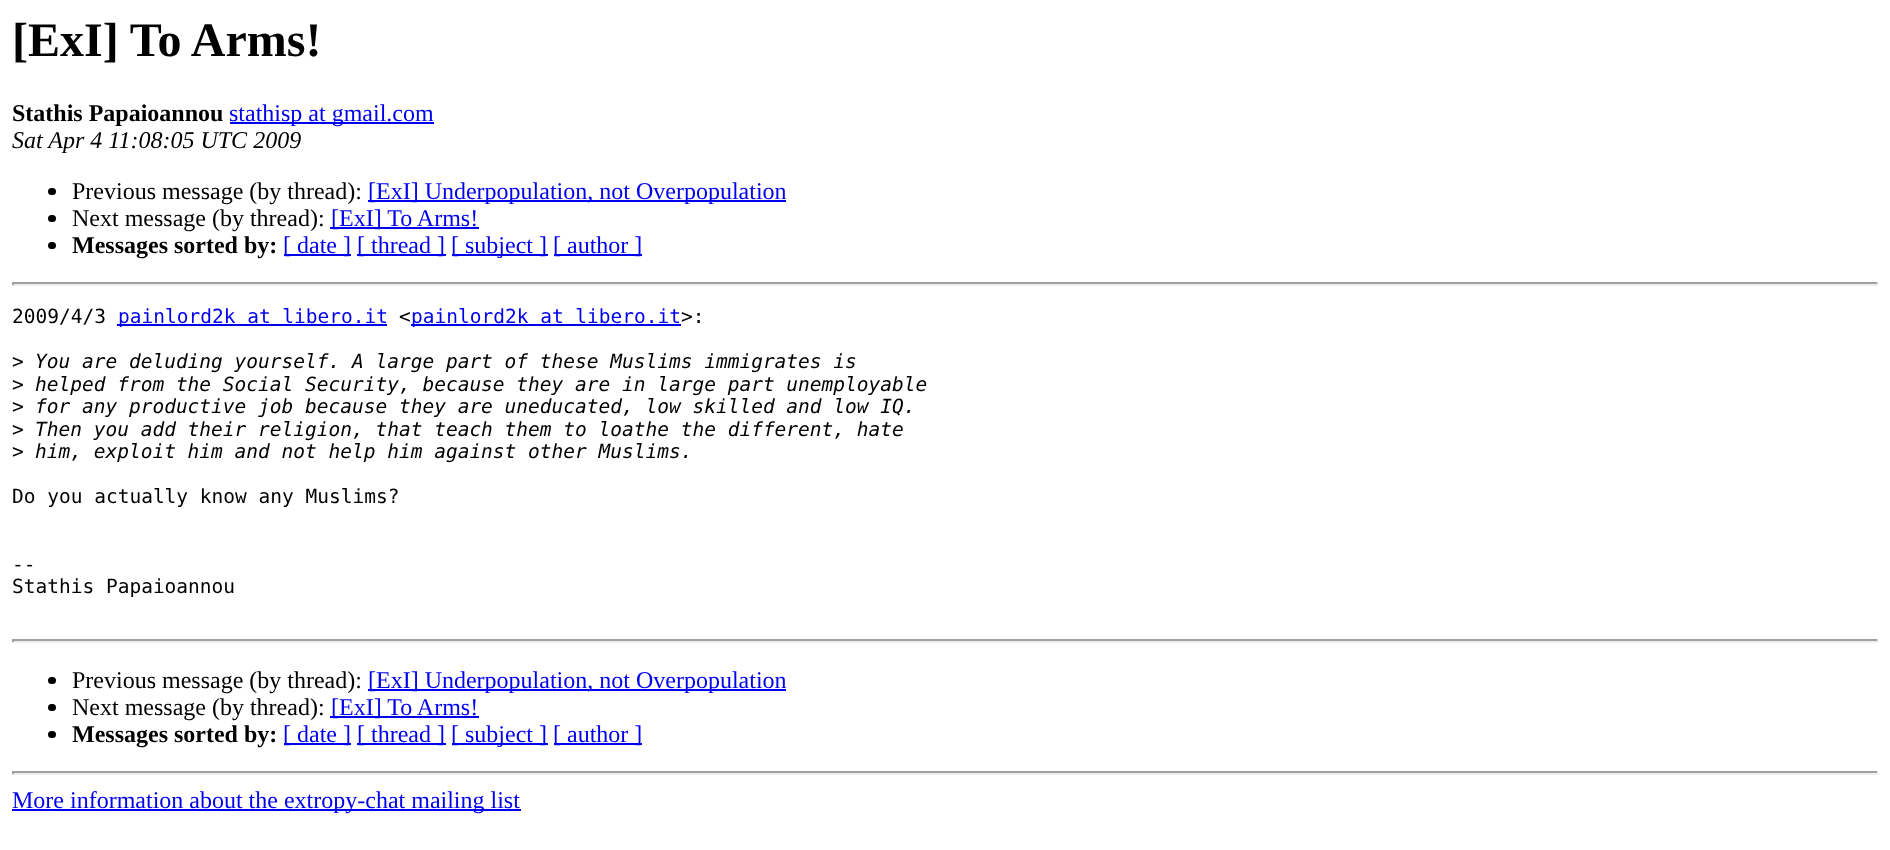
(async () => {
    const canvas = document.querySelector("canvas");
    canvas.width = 1890;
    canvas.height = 850;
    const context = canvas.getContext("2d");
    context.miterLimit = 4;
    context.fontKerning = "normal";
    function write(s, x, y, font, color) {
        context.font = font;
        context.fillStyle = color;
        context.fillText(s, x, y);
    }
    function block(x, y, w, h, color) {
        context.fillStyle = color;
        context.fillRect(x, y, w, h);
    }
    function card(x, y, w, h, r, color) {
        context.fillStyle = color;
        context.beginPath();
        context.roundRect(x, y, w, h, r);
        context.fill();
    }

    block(0, 0, 1890, 850, "rgb(255, 255, 255)");
    write("[ExI] To Arms!", 12, 56, "bold 48px Liberation Serif", "rgb(0, 0, 0)");
    write("Stathis Papaioannou", 12, 121, "bold 24px Liberation Serif", "rgb(0, 0, 0)");
    block(230, 122, 204, 2, "rgb(0, 0, 238)");
    write("stathisp at gmail.com", 229, 121, "24px Liberation Serif", "rgb(0, 0, 238)");
    write("Sat Apr 4 11:08:05 UTC 2009", 12, 148, "italic 24px Liberation Serif", "rgb(0, 0, 0)");
    card(48, 188, 8, 7, 3.5, "rgb(0, 0, 0)");
    write("Previous message (by thread):", 72, 199, "24px Liberation Serif", "rgb(0, 0, 0)");
    block(368, 200, 418, 2, "rgb(0, 0, 238)");
    write("[ExI] Underpopulation, not Overpopulation", 368, 199, "24px Liberation Serif", "rgb(0, 0, 238)");
    card(48, 215, 8, 7, 3.5, "rgb(0, 0, 0)");
    write("Next message (by thread):", 72, 226, "24px Liberation Serif", "rgb(0, 0, 0)");
    block(330, 227, 149, 2, "rgb(0, 0, 238)");
    write("[ExI] To Arms!", 331, 226, "24px Liberation Serif", "rgb(0, 0, 238)");
    card(48, 242, 8, 7, 3.5, "rgb(0, 0, 0)");
    write("Messages sorted by:", 72, 253, "bold 24px Liberation Serif", "rgb(0, 0, 0)");
    block(284, 254, 67, 2, "rgb(0, 0, 238)");
    write("[ date ]", 283, 253, "24px Liberation Serif", "rgb(0, 0, 238)");
    block(357, 254, 89, 2, "rgb(0, 0, 238)");
    write("[ thread ]", 357, 253, "24px Liberation Serif", "rgb(0, 0, 238)");
    block(452, 254, 96, 2, "rgb(0, 0, 238)");
    write("[ subject ]", 451, 253, "24px Liberation Serif", "rgb(0, 0, 238)");
    block(554, 254, 88, 2, "rgb(0, 0, 238)");
    write("[ author ]", 553, 253, "24px Liberation Serif", "rgb(0, 0, 238)");
    block(12, 282, 1866, 2, "rgb(159, 159, 159)");
    block(1877, 282, 2, 3, "rgb(238, 238, 238)");
    block(12, 284, 1866, 2, "rgb(238, 238, 238)");
    block(12, 282, 2, 3, "rgb(159, 159, 159)");
    write("2009/4/3", 12, 323, "19.5px DejaVu Sans Mono", "rgb(0, 0, 0)");
    block(117, 324, 270, 2, "rgb(0, 0, 238)");
    write("painlord2k at libero.it", 118, 323, "19.5px DejaVu Sans Mono", "rgb(0, 0, 238)");
    write("<", 399, 323, "19.5px DejaVu Sans Mono", "rgb(0, 0, 0)");
    block(411, 324, 270, 2, "rgb(0, 0, 238)");
    write("painlord2k at libero.it", 411, 323, "19.5px DejaVu Sans Mono", "rgb(0, 0, 238)");
    write(">:", 681, 323, "19.5px DejaVu Sans Mono", "rgb(0, 0, 0)");
    write(">", 12, 368, "19.5px DejaVu Sans Mono", "rgb(0, 0, 0)");
    write("You are deluding yourself. A large part of these Muslims immigrates is", 35, 368, "italic 19.5px DejaVu Sans Mono", "rgb(0, 0, 0)");
    write(">", 12, 391, "19.5px DejaVu Sans Mono", "rgb(0, 0, 0)");
    write("helped from the Social Security, because they are in large part unemployable", 35, 391, "italic 19.5px DejaVu Sans Mono", "rgb(0, 0, 0)");
    write(">", 12, 413, "19.5px DejaVu Sans Mono", "rgb(0, 0, 0)");
    write("for any productive job because they are uneducated, low skilled and low IQ.", 35, 413, "italic 19.5px DejaVu Sans Mono", "rgb(0, 0, 0)");
    write(">", 12, 436, "19.5px DejaVu Sans Mono", "rgb(0, 0, 0)");
    write("Then you add their religion, that teach them to loathe the different, hate", 35, 436, "italic 19.5px DejaVu Sans Mono", "rgb(0, 0, 0)");
    write(">", 12, 458, "19.5px DejaVu Sans Mono", "rgb(0, 0, 0)");
    write("him, exploit him and not help him against other Muslims.", 35, 458, "italic 19.5px DejaVu Sans Mono", "rgb(0, 0, 0)");
    write("Do you actually know any Muslims?", 12, 503, "19.5px DejaVu Sans Mono", "rgb(0, 0, 0)");
    write("--", 12, 571, "19.5px DejaVu Sans Mono", "rgb(0, 0, 0)");
    write("Stathis Papaioannou", 12, 593, "19.5px DejaVu Sans Mono", "rgb(0, 0, 0)");
    block(12, 639, 1866, 2, "rgb(159, 159, 159)");
    block(1877, 639, 2, 3, "rgb(238, 238, 238)");
    block(12, 641, 1866, 2, "rgb(238, 238, 238)");
    block(12, 639, 2, 3, "rgb(159, 159, 159)");
    card(48, 677, 8, 7, 3.5, "rgb(0, 0, 0)");
    write("Previous message (by thread):", 72, 688, "24px Liberation Serif", "rgb(0, 0, 0)");
    block(368, 689, 418, 2, "rgb(0, 0, 238)");
    write("[ExI] Underpopulation, not Overpopulation", 368, 688, "24px Liberation Serif", "rgb(0, 0, 238)");
    card(48, 704, 8, 7, 3.5, "rgb(0, 0, 0)");
    write("Next message (by thread):", 72, 715, "24px Liberation Serif", "rgb(0, 0, 0)");
    block(330, 716, 149, 2, "rgb(0, 0, 238)");
    write("[ExI] To Arms!", 331, 715, "24px Liberation Serif", "rgb(0, 0, 238)");
    card(48, 731, 8, 7, 3.5, "rgb(0, 0, 0)");
    write("Messages sorted by:", 72, 742, "bold 24px Liberation Serif", "rgb(0, 0, 0)");
    block(284, 743, 67, 2, "rgb(0, 0, 238)");
    write("[ date ]", 283, 742, "24px Liberation Serif", "rgb(0, 0, 238)");
    block(357, 743, 89, 2, "rgb(0, 0, 238)");
    write("[ thread ]", 357, 742, "24px Liberation Serif", "rgb(0, 0, 238)");
    block(452, 743, 96, 2, "rgb(0, 0, 238)");
    write("[ subject ]", 451, 742, "24px Liberation Serif", "rgb(0, 0, 238)");
    block(554, 743, 88, 2, "rgb(0, 0, 238)");
    write("[ author ]", 553, 742, "24px Liberation Serif", "rgb(0, 0, 238)");
    block(12, 771, 1866, 2, "rgb(159, 159, 159)");
    block(1877, 771, 2, 3, "rgb(238, 238, 238)");
    block(12, 773, 1866, 2, "rgb(238, 238, 238)");
    block(12, 771, 2, 3, "rgb(159, 159, 159)");
    block(12, 809, 509, 2, "rgb(0, 0, 238)");
    write("More information about the extropy-chat mailing list", 12, 808, "24px Liberation Serif", "rgb(0, 0, 238)");
})();
